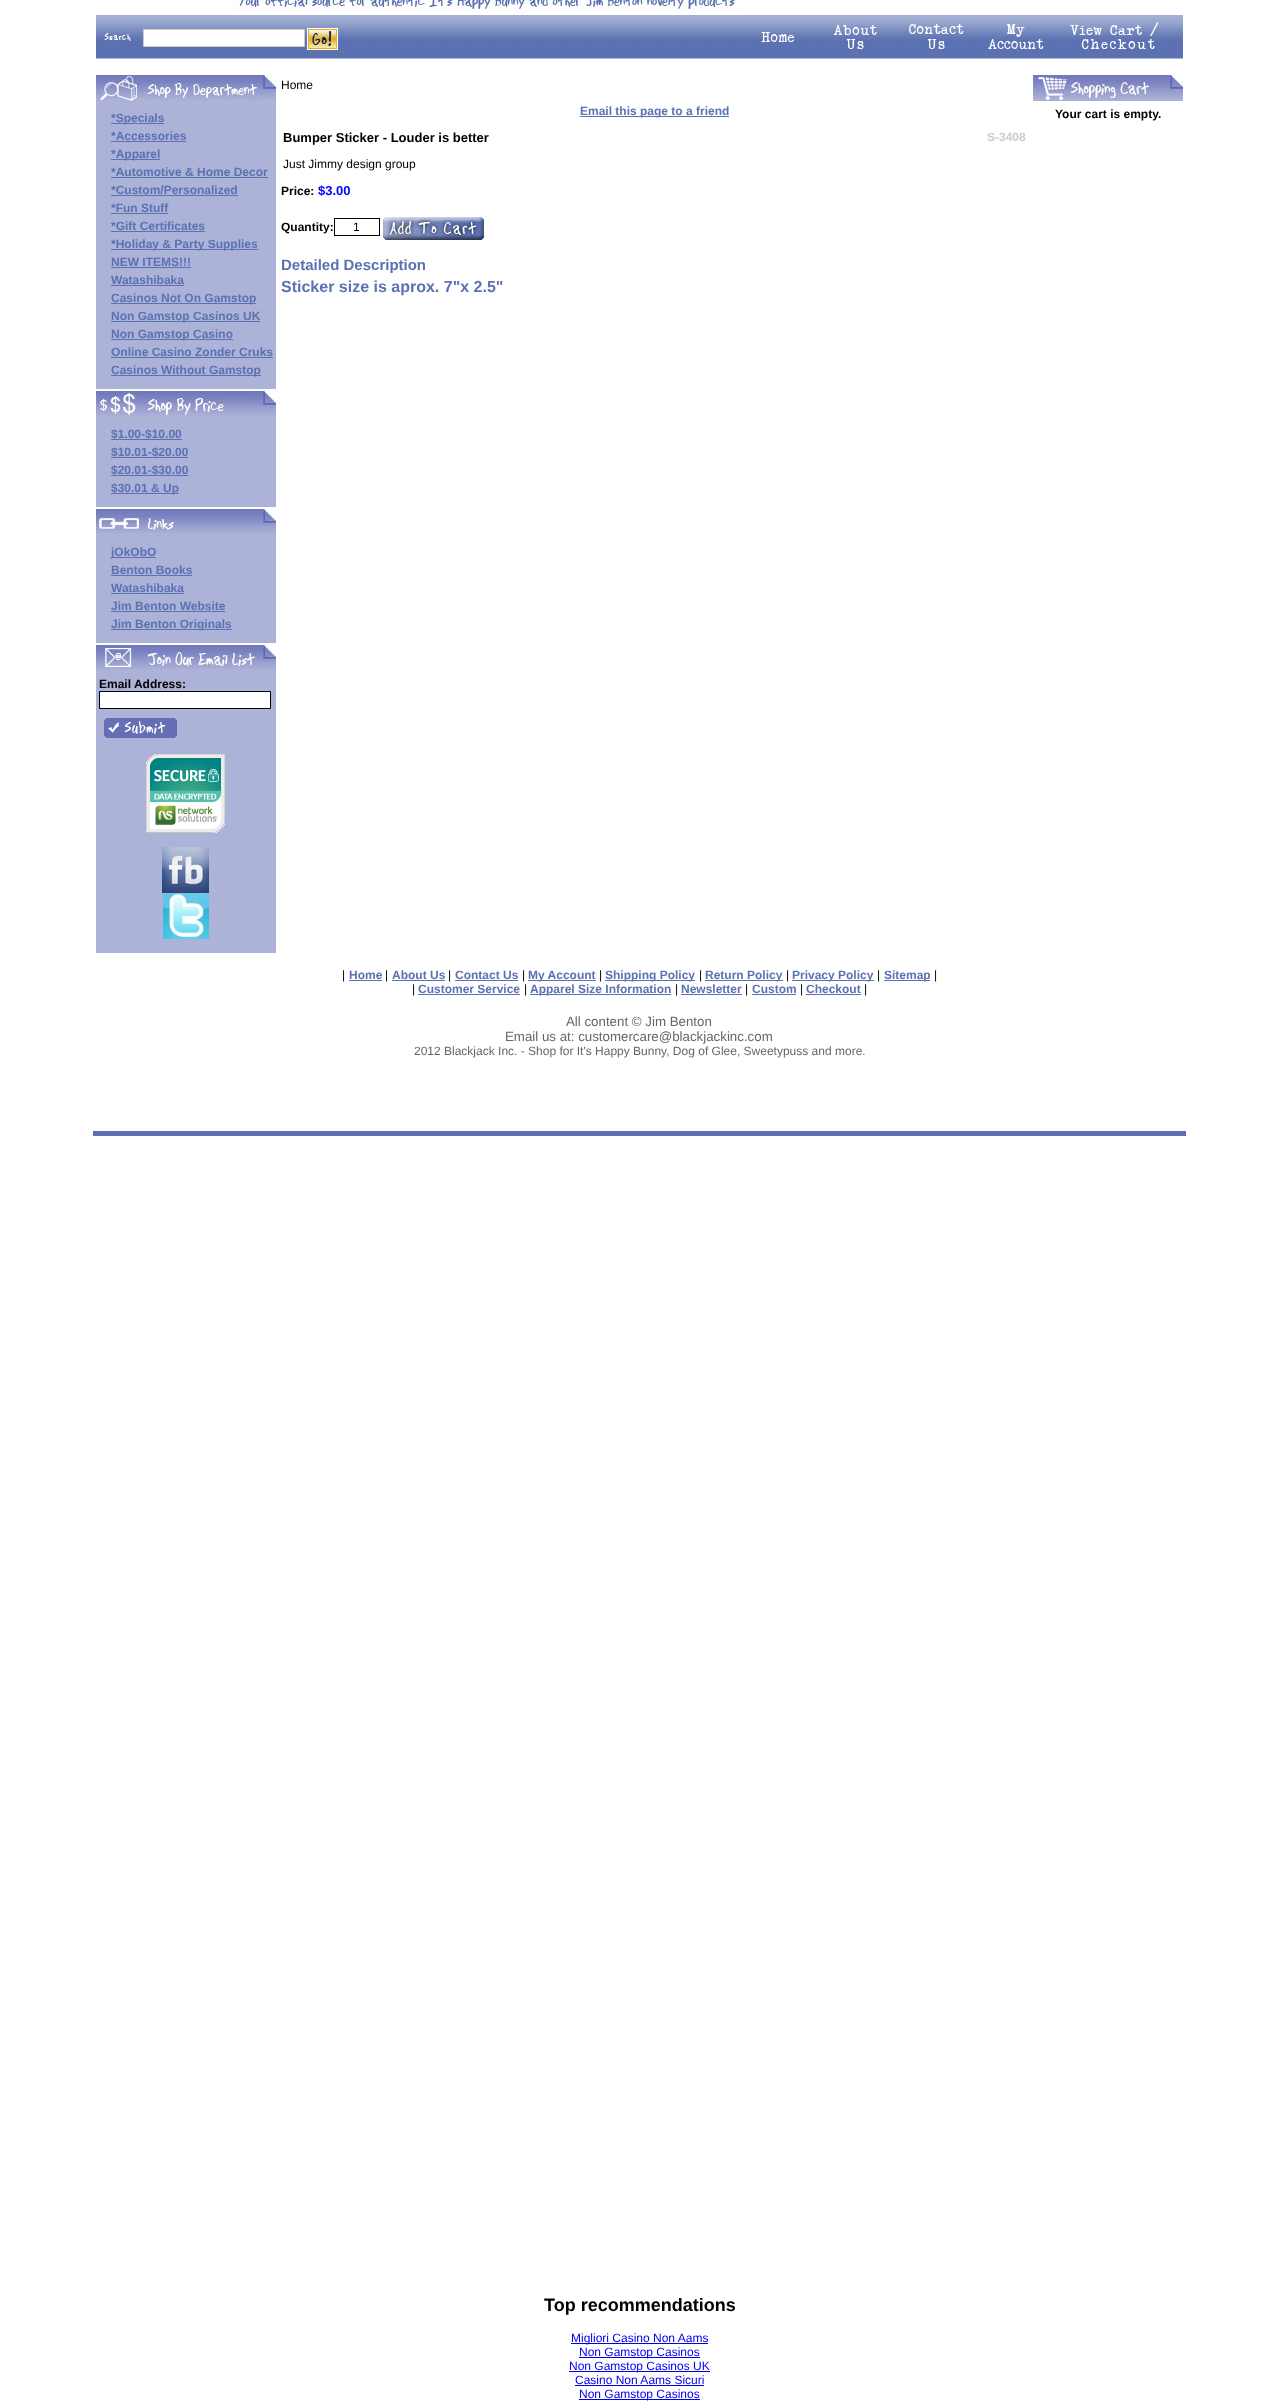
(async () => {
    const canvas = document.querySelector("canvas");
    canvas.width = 1279;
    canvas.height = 2405;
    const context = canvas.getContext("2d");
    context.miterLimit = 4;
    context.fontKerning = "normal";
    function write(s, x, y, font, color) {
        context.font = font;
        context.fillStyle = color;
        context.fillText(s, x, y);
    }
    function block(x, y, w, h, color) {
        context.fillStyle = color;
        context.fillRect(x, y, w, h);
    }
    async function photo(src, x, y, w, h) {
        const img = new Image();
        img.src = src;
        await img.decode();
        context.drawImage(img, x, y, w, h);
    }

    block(0, 0, 1279, 2405, "rgb(255, 255, 255)");
    await photo("media/1.png", 233, 0, 504, 13);
    await photo("media/2.png", 96, 15, 43, 44);
    await photo("media/3.png", 104, 33, 27, 8);
    await photo("media/4.png", 139, 15, 601, 44);
    context.beginPath();
    context.rect(143.5, 29.5, 161, 17);
    context.fill();
    context.strokeStyle = "rgb(204, 204, 204)";
    context.stroke();
    await photo("media/5.png", 307, 28, 31, 22);
    await photo("media/6.png", 740, 15, 76, 44);
    await photo("media/7.png", 761, 32, 34, 10);
    await photo("media/8.png", 816, 15, 79, 44);
    await photo("media/9.png", 833, 25, 44, 24);
    await photo("media/10.png", 895, 15, 83, 44);
    await photo("media/11.png", 909, 24, 55, 25);
    await photo("media/6.png", 978, 15, 76, 44);
    await photo("media/12.png", 988, 24, 56, 25);
    await photo("media/13.png", 1054, 15, 129, 44);
    await photo("media/14.png", 1070, 22, 89, 27);
    block(96, 101, 180, 852, "rgb(173, 178, 216)");
    await photo("media/15.png", 96, 73, 180, 28);
    block(111, 123, 53, 1, "rgb(91, 113, 177)");
    write("*Specials", 111, 122, "bold 12px Liberation Sans", "rgb(91, 113, 177)");
    write("*Accessories", 111, 140, "bold 12px Liberation Sans", "rgb(91, 113, 177)");
    block(111, 141, 75, 1, "rgb(91, 113, 177)");
    block(111, 159, 49, 1, "rgb(91, 113, 177)");
    write("*Apparel", 111, 158, "bold 12px Liberation Sans", "rgb(91, 113, 177)");
    write("*Automotive & Home Decor", 111, 176, "bold 12px Liberation Sans", "rgb(91, 113, 177)");
    block(111, 177, 157, 1, "rgb(91, 113, 177)");
    write("*Custom/Personalized", 111, 194, "bold 12px Liberation Sans", "rgb(91, 113, 177)");
    block(111, 195, 127, 1, "rgb(91, 113, 177)");
    write("*Fun Stuff", 111, 212, "bold 12px Liberation Sans", "rgb(91, 113, 177)");
    block(111, 213, 57, 1, "rgb(91, 113, 177)");
    write("*Gift Certificates", 111, 230, "bold 12px Liberation Sans", "rgb(91, 113, 177)");
    block(111, 231, 94, 1, "rgb(91, 113, 177)");
    block(111, 249, 147, 1, "rgb(91, 113, 177)");
    write("*Holiday & Party Supplies", 111, 248, "bold 12px Liberation Sans", "rgb(91, 113, 177)");
    write("NEW ITEMS!!!", 111, 266, "bold 12px Liberation Sans", "rgb(91, 113, 177)");
    block(111, 267, 80, 1, "rgb(91, 113, 177)");
    write("Watashibaka", 111, 284, "bold 12px Liberation Sans", "rgb(91, 113, 177)");
    block(111, 285, 73, 1, "rgb(91, 113, 177)");
    block(111, 303, 145, 1, "rgb(91, 113, 177)");
    write("Casinos Not On Gamstop", 111, 302, "bold 12px Liberation Sans", "rgb(91, 113, 177)");
    block(111, 321, 149, 1, "rgb(91, 113, 177)");
    write("Non Gamstop Casinos UK", 111, 320, "bold 12px Liberation Sans", "rgb(91, 113, 177)");
    block(111, 339, 122, 1, "rgb(91, 113, 177)");
    write("Non Gamstop Casino", 111, 338, "bold 12px Liberation Sans", "rgb(91, 113, 177)");
    write("Online Casino Zonder Cruks", 111, 356, "bold 12px Liberation Sans", "rgb(91, 113, 177)");
    block(111, 357, 162, 1, "rgb(91, 113, 177)");
    block(111, 375, 150, 1, "rgb(91, 113, 177)");
    write("Casinos Without Gamstop", 111, 374, "bold 12px Liberation Sans", "rgb(91, 113, 177)");
    await photo("media/16.png", 96, 389, 180, 28);
    write("$1.00-$10.00", 111, 438, "bold 12px Liberation Sans", "rgb(91, 113, 177)");
    block(111, 439, 71, 1, "rgb(91, 113, 177)");
    write("$10.01-$20.00", 111, 456, "bold 12px Liberation Sans", "rgb(91, 113, 177)");
    block(111, 457, 77, 1, "rgb(91, 113, 177)");
    write("$20.01-$30.00", 111, 474, "bold 12px Liberation Sans", "rgb(91, 113, 177)");
    block(111, 475, 77, 1, "rgb(91, 113, 177)");
    block(111, 493, 68, 1, "rgb(91, 113, 177)");
    write("$30.01 & Up", 111, 492, "bold 12px Liberation Sans", "rgb(91, 113, 177)");
    await photo("media/17.png", 96, 507, 180, 26);
    block(111, 557, 45, 1, "rgb(91, 113, 177)");
    write("jOkObO", 111, 556, "bold 12px Liberation Sans", "rgb(91, 113, 177)");
    write("Benton Books", 111, 574, "bold 12px Liberation Sans", "rgb(91, 113, 177)");
    block(111, 575, 81, 1, "rgb(91, 113, 177)");
    write("Watashibaka", 111, 592, "bold 12px Liberation Sans", "rgb(91, 113, 177)");
    block(111, 593, 73, 1, "rgb(91, 113, 177)");
    write("Jim Benton Website", 111, 610, "bold 12px Liberation Sans", "rgb(91, 113, 177)");
    block(111, 611, 114, 1, "rgb(91, 113, 177)");
    block(111, 629, 121, 1, "rgb(91, 113, 177)");
    write("Jim Benton Originals", 111, 628, "bold 12px Liberation Sans", "rgb(91, 113, 177)");
    await photo("media/18.png", 96, 643, 180, 26);
    write("Email Address:", 99, 688, "bold 12px Liberation Sans", "rgb(0, 0, 0)");
    context.fillStyle = "rgb(255, 255, 255)";
    context.beginPath();
    context.rect(99.5, 691.5, 171, 17);
    context.fill();
    context.strokeStyle = "rgb(0, 0, 0)";
    context.stroke();
    await photo("media/19.png", 104, 718, 73, 20);
    await photo("media/20.png", 146, 754, 79, 79);
    await photo("media/21.png", 162, 847, 47, 46);
    await photo("media/22.png", 163, 893, 46, 46);
    write("Home", 281, 89, "12px Liberation Sans", "rgb(0, 0, 0)");
    block(580, 116, 149, 1, "rgb(91, 113, 177)");
    write("Email this page to a friend", 580, 115, "bold 12px Liberation Sans", "rgb(91, 113, 177)");
    write("Bumper Sticker - Louder is better", 283, 142, "bold 13px Liberation Sans", "rgb(0, 0, 0)");
    write("S-3408", 987, 141, "bold 12px Liberation Sans", "rgb(204, 204, 204)");
    write("Just Jimmy design group", 283, 168, "12px Liberation Sans", "rgb(0, 0, 0)");
    write("Price:", 281, 195, "bold 12px Liberation Sans", "rgb(0, 0, 0)");
    write("$3.00", 318, 195, "bold 13px Liberation Sans", "rgb(0, 0, 255)");
    write("Quantity:", 281, 231, "bold 12px Liberation Sans", "rgb(0, 0, 0)");
    context.strokeRect(334.5, 218.5, 45, 17);
    write("1", 353, 231, "12px Liberation Sans", "rgb(0, 0, 0)");
    await photo("media/23.png", 383, 217, 101, 23);
    write("Detailed Description", 281, 270, "bold 15px Liberation Sans", "rgb(91, 113, 177)");
    write("Sticker size is aprox. 7\"x 2.5\"", 281, 292, "bold 16px Liberation Sans", "rgb(91, 113, 177)");
    await photo("media/24.png", 1033, 73, 150, 28);
    write("Your cart is empty.", 1055, 118, "bold 12px Liberation Sans", "rgb(0, 0, 0)");
    block(93, 1131, 1093, 5, "rgb(91, 113, 177)");
    write("|", 342, 979, "12px Liberation Sans", "rgb(0, 0, 0)");
    write("Home", 349, 979, "bold 12px Liberation Sans", "rgb(91, 113, 177)");
    block(349, 980, 33, 1, "rgb(91, 113, 177)");
    write("|", 385, 979, "12px Liberation Sans", "rgb(0, 0, 0)");
    write("About Us", 392, 979, "bold 12px Liberation Sans", "rgb(91, 113, 177)");
    block(392, 980, 53, 1, "rgb(91, 113, 177)");
    write("|", 448, 979, "12px Liberation Sans", "rgb(0, 0, 0)");
    write("Contact Us", 455, 979, "bold 12px Liberation Sans", "rgb(91, 113, 177)");
    block(455, 980, 63, 1, "rgb(91, 113, 177)");
    write("|", 522, 979, "12px Liberation Sans", "rgb(0, 0, 0)");
    block(528, 980, 68, 1, "rgb(91, 113, 177)");
    write("My Account", 528, 979, "bold 12px Liberation Sans", "rgb(91, 113, 177)");
    write("|", 599, 979, "12px Liberation Sans", "rgb(0, 0, 0)");
    block(605, 980, 90, 1, "rgb(91, 113, 177)");
    write("Shipping Policy", 605, 979, "bold 12px Liberation Sans", "rgb(91, 113, 177)");
    write("|", 699, 979, "12px Liberation Sans", "rgb(0, 0, 0)");
    block(705, 980, 78, 1, "rgb(91, 113, 177)");
    write("Return Policy", 705, 979, "bold 12px Liberation Sans", "rgb(91, 113, 177)");
    write("|", 786, 979, "12px Liberation Sans", "rgb(0, 0, 0)");
    block(792, 980, 82, 1, "rgb(91, 113, 177)");
    write("Privacy Policy", 792, 979, "bold 12px Liberation Sans", "rgb(91, 113, 177)");
    write("|", 877, 979, "12px Liberation Sans", "rgb(0, 0, 0)");
    block(884, 980, 46, 1, "rgb(91, 113, 177)");
    write("Sitemap", 884, 979, "bold 12px Liberation Sans", "rgb(91, 113, 177)");
    write("|", 934, 979, "12px Liberation Sans", "rgb(0, 0, 0)");
    write("|", 412, 993, "12px Liberation Sans", "rgb(0, 0, 0)");
    write("Customer Service", 418, 993, "bold 12px Liberation Sans", "rgb(91, 113, 177)");
    block(418, 994, 102, 1, "rgb(91, 113, 177)");
    write("|", 524, 993, "12px Liberation Sans", "rgb(0, 0, 0)");
    block(530, 994, 141, 1, "rgb(91, 113, 177)");
    write("Apparel Size Information", 530, 993, "bold 12px Liberation Sans", "rgb(91, 113, 177)");
    write("|", 675, 993, "12px Liberation Sans", "rgb(0, 0, 0)");
    write("Newsletter", 681, 993, "bold 12px Liberation Sans", "rgb(91, 113, 177)");
    block(681, 994, 61, 1, "rgb(91, 113, 177)");
    write("|", 745, 993, "12px Liberation Sans", "rgb(0, 0, 0)");
    write("Custom", 752, 993, "bold 12px Liberation Sans", "rgb(91, 113, 177)");
    block(752, 994, 44, 1, "rgb(91, 113, 177)");
    write("|", 800, 993, "12px Liberation Sans", "rgb(0, 0, 0)");
    write("Checkout", 806, 993, "bold 12px Liberation Sans", "rgb(91, 113, 177)");
    block(806, 994, 55, 1, "rgb(91, 113, 177)");
    write("|", 864, 993, "12px Liberation Sans", "rgb(0, 0, 0)");
    write("All content © Jim Benton", 566, 1026, "13.3px Liberation Sans", "rgb(102, 102, 102)");
    write("Email us at: customercare@blackjackinc.com", 505, 1041, "13.3px Liberation Sans", "rgb(102, 102, 102)");
    write("2012 Blackjack Inc. - Shop for It's Happy Bunny, Dog of Glee, Sweetypuss and more.", 414, 1055, "12px Liberation Sans", "rgb(102, 102, 102)");
    write("Top recommendations", 544, 2311, "bold 18px Liberation Sans", "rgb(0, 0, 0)");
    block(571, 2343, 137, 1, "rgb(0, 0, 238)");
    write("Migliori Casino Non Aams", 571, 2342, "12px Liberation Sans", "rgb(0, 0, 238)");
    block(579, 2357, 121, 1, "rgb(0, 0, 238)");
    write("Non Gamstop Casinos", 579, 2356, "12px Liberation Sans", "rgb(0, 0, 238)");
    block(569, 2371, 141, 1, "rgb(0, 0, 238)");
    write("Non Gamstop Casinos UK", 569, 2370, "12px Liberation Sans", "rgb(0, 0, 238)");
    write("Casino Non Aams Sicuri", 575, 2384, "12px Liberation Sans", "rgb(0, 0, 238)");
    block(575, 2385, 129, 1, "rgb(0, 0, 238)");
    block(579, 2399, 121, 1, "rgb(0, 0, 238)");
    write("Non Gamstop Casinos", 579, 2398, "12px Liberation Sans", "rgb(0, 0, 238)");
})();
